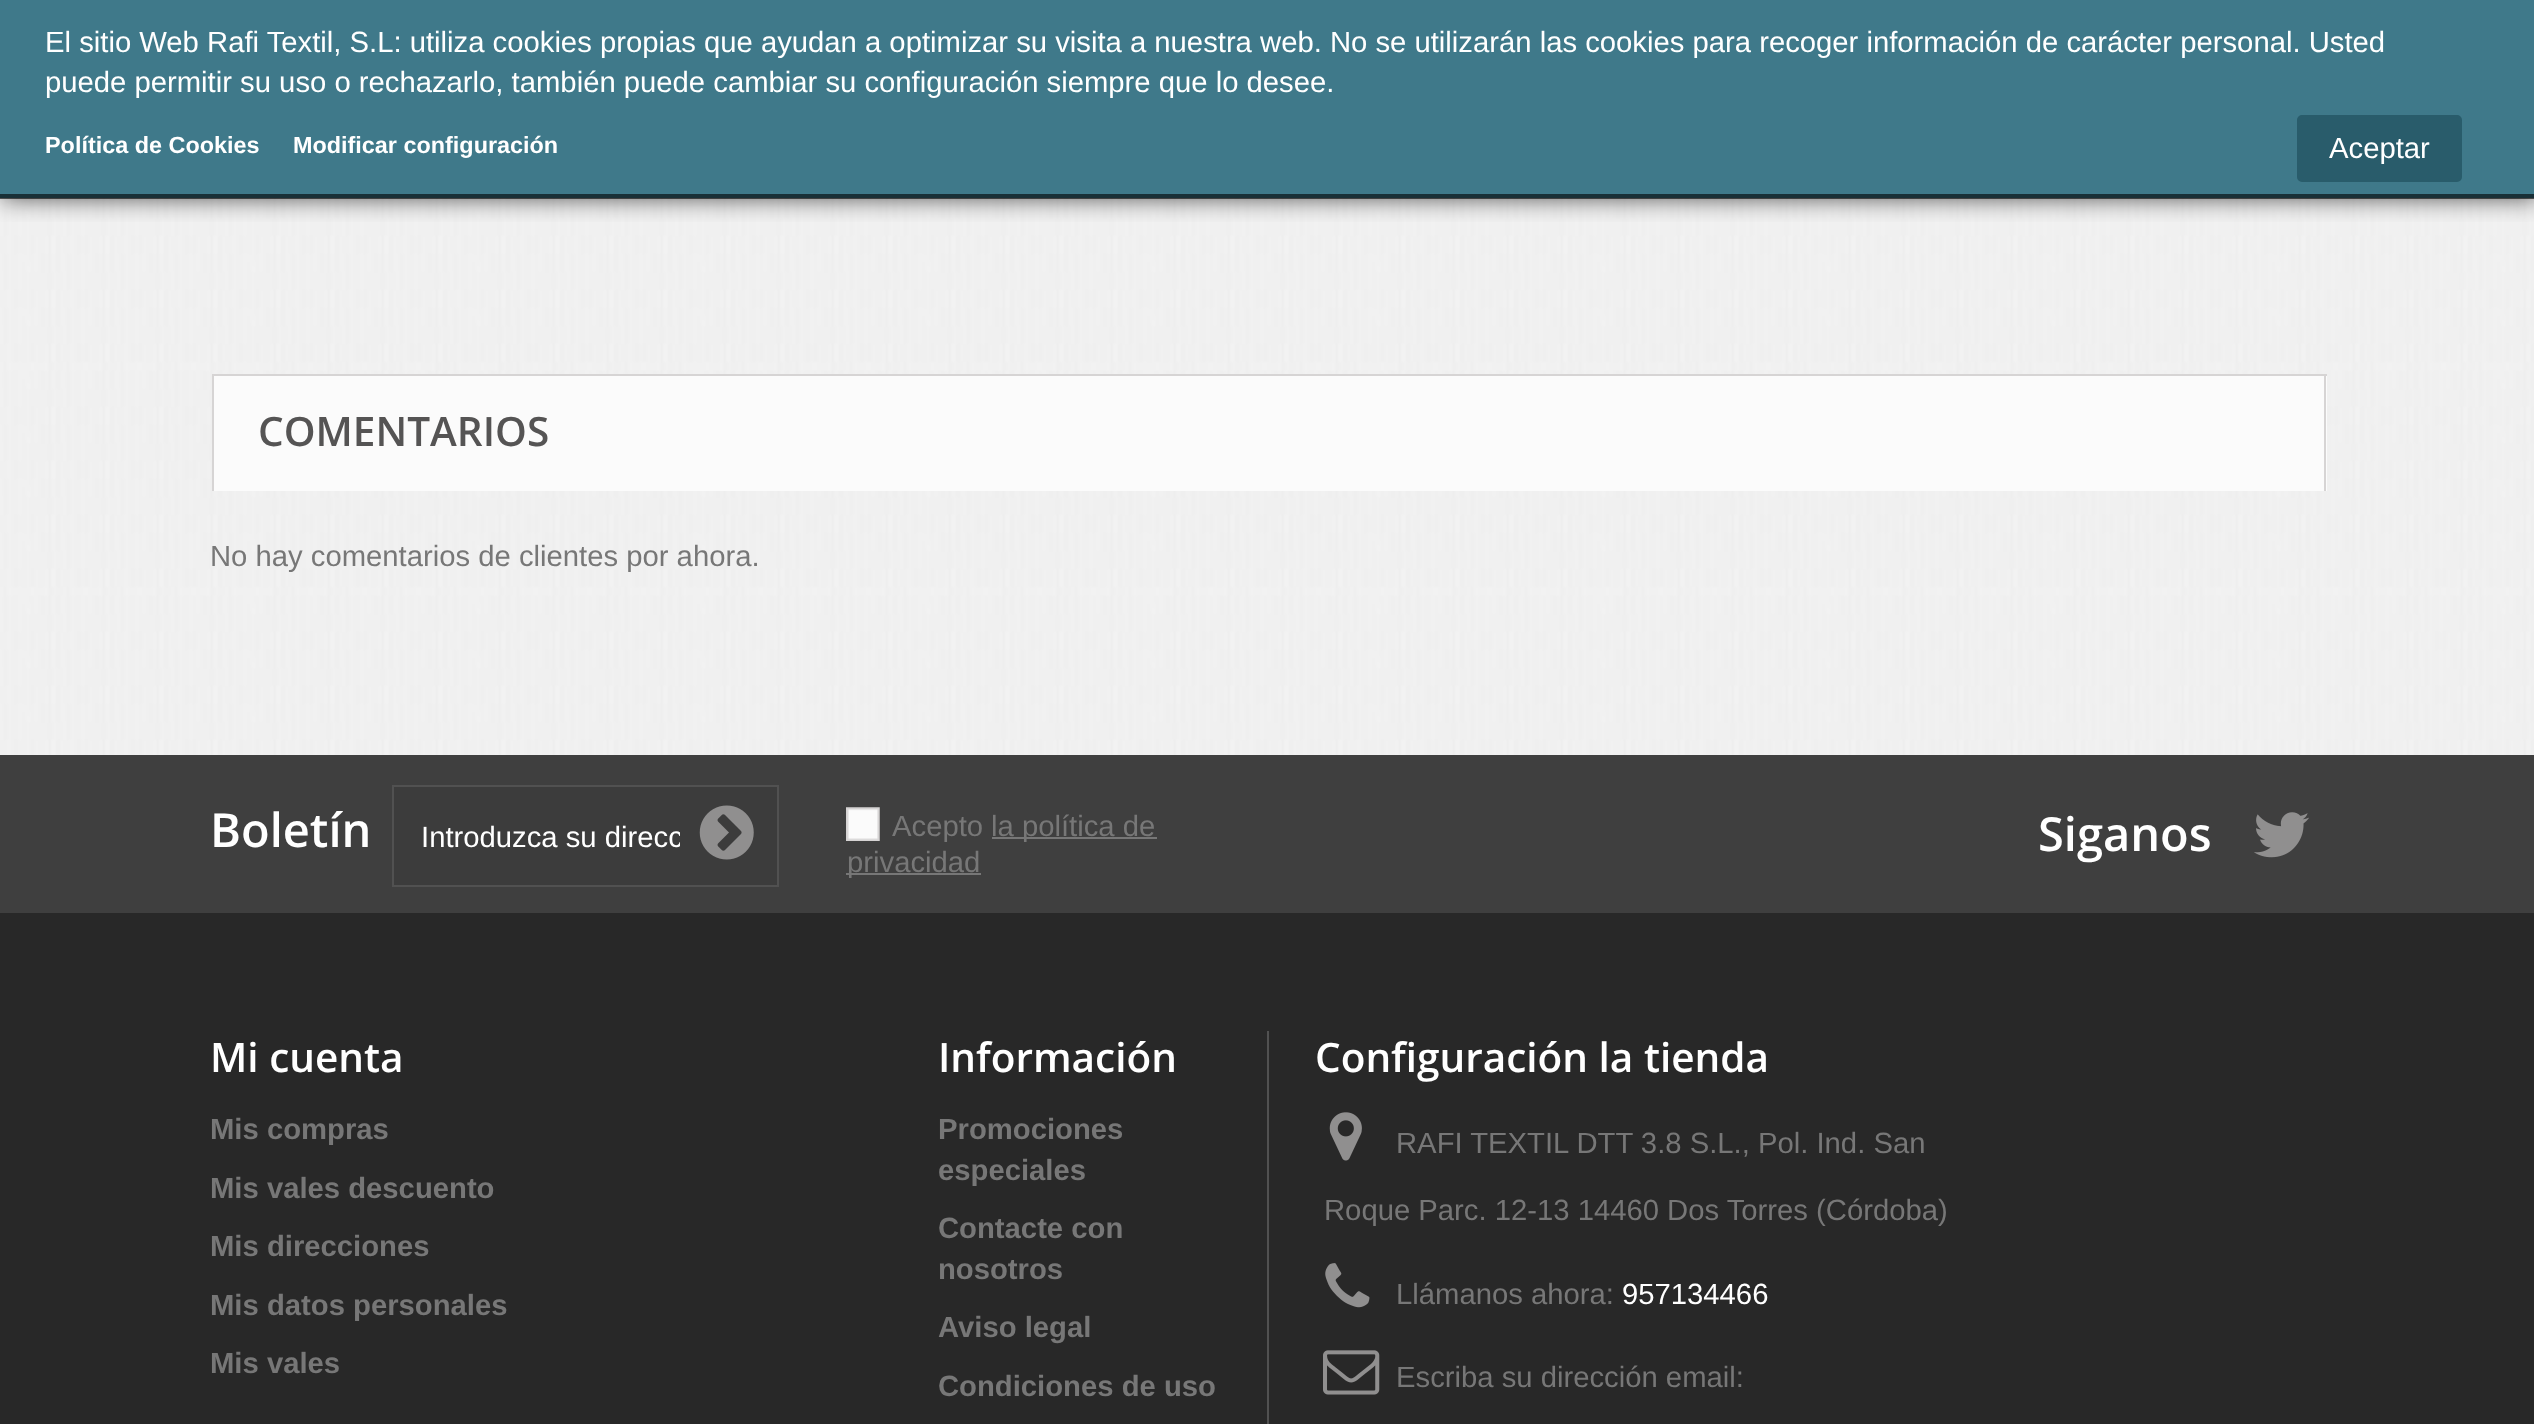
(async () => {
    const canvas = document.querySelector("canvas");
    canvas.width = 2534;
    canvas.height = 1424;
    const context = canvas.getContext("2d");
    context.miterLimit = 4;
    context.fontKerning = "normal";
    function write(s, x, y, font, color) {
        context.font = font;
        context.fillStyle = color;
        context.fillText(s, x, y);
    }
    function block(x, y, w, h, color) {
        context.fillStyle = color;
        context.fillRect(x, y, w, h);
    }
    async function photo(src, x, y, w, h) {
        const img = new Image();
        img.src = src;
        await img.decode();
        context.drawImage(img, x, y, w, h);
    }

    block(0, 0, 2534, 1424, "rgb(40, 40, 40)");
    await photo("media/1.png", 0, 0, 2534, 755);
    context.save();
    context.beginPath();
    context.rect(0, 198, 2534, 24);
    context.clip();
    context.fillStyle = "rgba(0, 0, 0, 0.67)";
    context.filter = "blur(12.5px)";
    context.beginPath();
    context.rect(2, 0, 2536, 198);
    context.fill();
    context.filter = "none";
    context.restore();
    block(0, 0, 2534, 198, "rgba(50, 112, 130, 0.93)");
    block(0, 194, 2534, 5, "rgba(0, 0, 0, 0.6)");
    write("El sitio Web Rafi Textil, S.L: utiliza cookies propias que ayudan a optimizar su visita a nuestra web. No se utilizarán las cookies para recoger información de carácter personal. Usted", 45, 52, "29.25px Liberation Sans", "rgb(255, 255, 255)");
    write("puede permitir su uso o rechazarlo, también puede cambiar su configuración siempre que lo desee.", 45, 92, "29.25px Liberation Sans", "rgb(255, 255, 255)");
    write("Política de Cookies", 45, 153, "bold 23.4px Liberation Sans", "rgb(255, 255, 255)");
    write("Modificar configuración", 293, 153, "bold 23.4px Liberation Sans", "rgb(255, 255, 255)");
    context.fillStyle = "rgb(41, 92, 107)";
    context.beginPath();
    context.roundRect(2299.5, 117.5, 160, 62, 2.5);
    context.fill();
    context.strokeStyle = "rgb(41, 92, 107)";
    context.lineWidth = 5;
    context.stroke();
    write("Aceptar", 2329, 158, "29.25px Liberation Sans", "rgb(255, 255, 255)");
    block(214, 376, 2113, 115, "rgb(251, 251, 251)");
    block(212, 374, 2115, 2, "rgb(214, 212, 212)");
    block(2324, 374, 2, 117, "rgb(214, 212, 212)");
    block(212, 374, 2, 117, "rgb(214, 212, 212)");
    write("COMENTARIOS", 258, 446, "600 40.5px Open Sans", "rgb(85, 84, 84)");
    write("No hay comentarios de clientes por ahora.", 210, 566, "29.25px Liberation Sans", "rgb(119, 119, 119)");
    block(0, 755, 2534, 158, "rgb(63, 63, 63)");
    write("Boletín", 210, 847, "600 47px Open Sans", "rgb(255, 255, 255)");
    context.fillStyle = "rgb(60, 60, 60)";
    context.beginPath();
    context.rect(393, 786, 385, 100);
    context.fill();
    context.strokeStyle = "rgb(81, 81, 81)";
    context.lineWidth = 2;
    context.stroke();
    context.save();
    context.beginPath();
    context.rect(421, 819, 259, 34);
    context.clip();
    write("Introduzca su direcc", 421, 847, "29.25px Liberation Sans", "rgb(255, 255, 255)");
    context.restore();
    await photo("media/2.png", 699, 805, 55, 55);
    await photo("media/3.png", 846, 807, 34, 34);
    write("Acepto", 892, 836, "29.25px Liberation Sans", "rgb(119, 119, 119)");
    block(992, 837, 165, 2, "rgb(119, 119, 119)");
    write("la política de", 991, 836, "29.25px Liberation Sans", "rgb(119, 119, 119)");
    block(846, 873, 135, 2, "rgb(119, 119, 119)");
    write("privacidad", 847, 872, "29.25px Liberation Sans", "rgb(119, 119, 119)");
    write("Siganos", 2038, 851, "600 47px Open Sans", "rgb(255, 255, 255)");
    await photo("media/4.png", 2254, 812, 55, 46);
    write("Mi cuenta", 210, 1072, "600 40.5px Open Sans", "rgb(255, 255, 255)");
    write("Mis compras", 210, 1139, "bold 29.25px Liberation Sans", "rgb(119, 119, 119)");
    write("Mis vales descuento", 210, 1198, "bold 29.25px Liberation Sans", "rgb(119, 119, 119)");
    write("Mis direcciones", 210, 1256, "bold 29.25px Liberation Sans", "rgb(119, 119, 119)");
    write("Mis datos personales", 210, 1315, "bold 29.25px Liberation Sans", "rgb(119, 119, 119)");
    write("Mis vales", 210, 1373, "bold 29.25px Liberation Sans", "rgb(119, 119, 119)");
    write("Información", 938, 1072, "600 40.5px Open Sans", "rgb(255, 255, 255)");
    write("Promociones", 938, 1139, "bold 29.25px Liberation Sans", "rgb(119, 119, 119)");
    write("especiales", 938, 1180, "bold 29.25px Liberation Sans", "rgb(119, 119, 119)");
    write("Contacte con", 938, 1238, "bold 29.25px Liberation Sans", "rgb(119, 119, 119)");
    write("nosotros", 938, 1279, "bold 29.25px Liberation Sans", "rgb(119, 119, 119)");
    write("Aviso legal", 938, 1337, "bold 29.25px Liberation Sans", "rgb(119, 119, 119)");
    write("Condiciones de uso", 938, 1396, "bold 29.25px Liberation Sans", "rgb(119, 119, 119)");
    block(1267, 1031, 2, 393, "rgb(81, 81, 81)");
    write("Configuración la tienda", 1315, 1072, "600 40.5px Open Sans", "rgb(255, 255, 255)");
    await photo("media/5.png", 1329, 1112, 33, 49);
    write("RAFI TEXTIL DTT 3.8 S.L., Pol. Ind. San", 1396, 1153, "29.25px Liberation Sans", "rgb(119, 119, 119)");
    write("Roque Parc. 12-13 14460 Dos Torres (Córdoba)", 1324, 1220, "29.25px Liberation Sans", "rgb(119, 119, 119)");
    await photo("media/6.png", 1325, 1263, 45, 45);
    write("Llámanos ahora:", 1396, 1304, "29.25px Liberation Sans", "rgb(119, 119, 119)");
    write("957134466", 1622, 1304, "29.25px Liberation Sans", "rgb(255, 255, 255)");
    await photo("media/7.png", 1323, 1350, 57, 45);
    write("Escriba su dirección email:", 1396, 1387, "29.25px Liberation Sans", "rgb(119, 119, 119)");
})();
